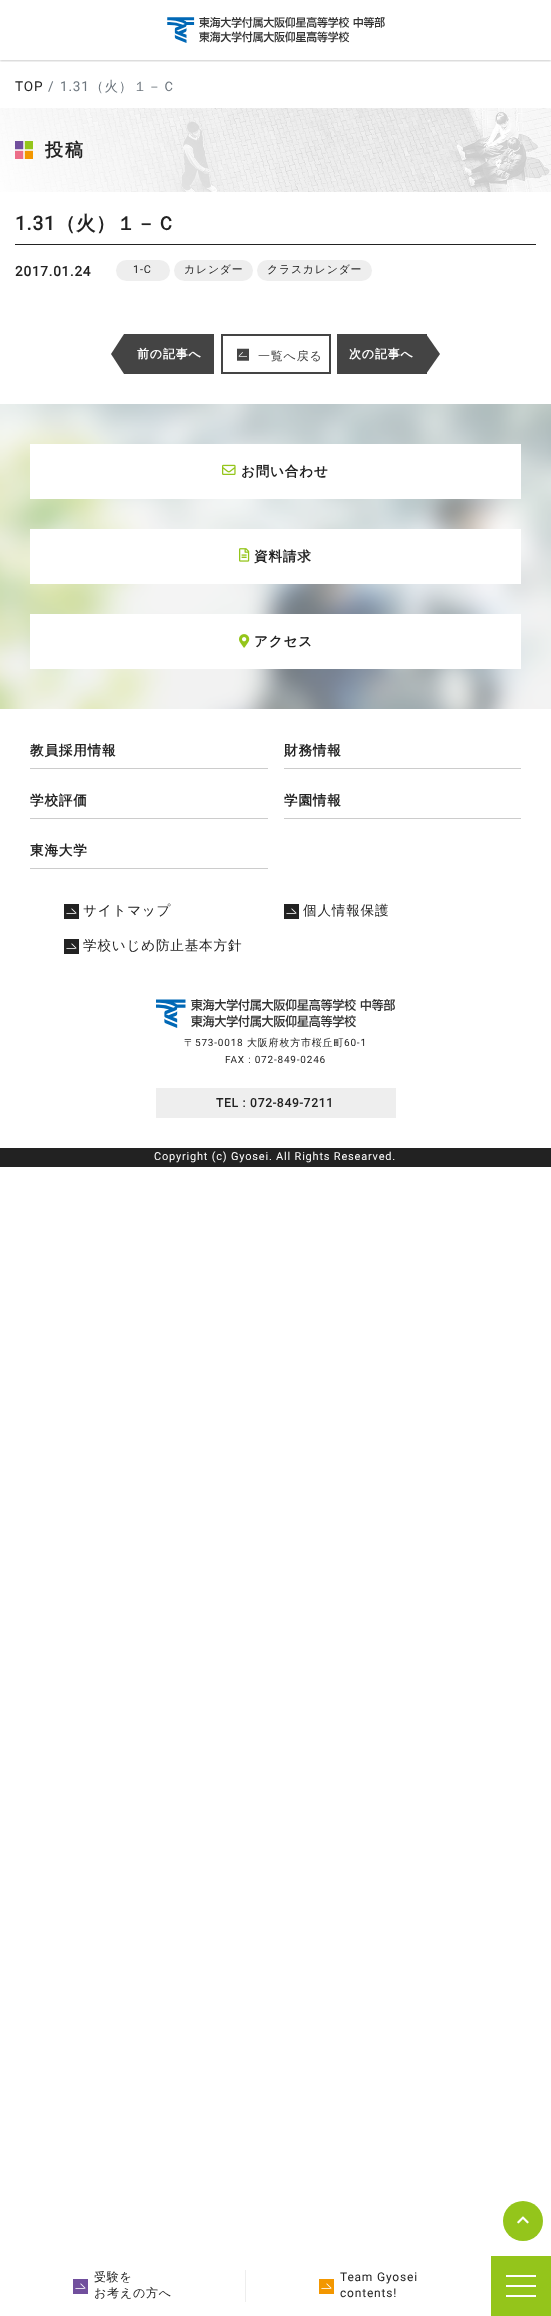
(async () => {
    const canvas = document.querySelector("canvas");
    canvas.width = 551;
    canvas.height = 2316;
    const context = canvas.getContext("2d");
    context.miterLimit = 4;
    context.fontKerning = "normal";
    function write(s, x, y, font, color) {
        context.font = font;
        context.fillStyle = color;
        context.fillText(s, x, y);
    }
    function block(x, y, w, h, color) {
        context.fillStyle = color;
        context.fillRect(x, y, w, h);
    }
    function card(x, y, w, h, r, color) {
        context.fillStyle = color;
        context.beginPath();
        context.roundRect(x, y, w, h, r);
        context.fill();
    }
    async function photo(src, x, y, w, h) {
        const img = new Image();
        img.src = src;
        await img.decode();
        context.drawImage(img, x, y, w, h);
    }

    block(0, 0, 551, 2316, "rgb(255, 255, 255)");
    context.save();
    context.beginPath();
    context.rect(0, 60, 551, 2);
    context.clip();
    context.fillStyle = "rgba(0, 0, 0, 0.2)";
    context.filter = "blur(1px)";
    context.beginPath();
    context.rect(0, 1, 551, 60);
    context.fill();
    context.filter = "none";
    context.restore();
    await photo("media/1.png", 167, 17, 218, 26);
    context.letterSpacing = "0.8px";
    write("TOP", 15, 91, "13.6px Roboto", "rgb(34, 34, 34)");
    write("/", 48, 91, "13.6px Roboto", "rgb(108, 117, 125)");
    write("1.31", 60, 91, "13.6px Roboto", "rgb(108, 117, 125)");
    write("（火）１－Ｃ", 90, 91, "500 13.6px WenQuanYi Zen Hei", "rgb(108, 117, 125)");
    await photo("media/2.png", 0, 108, 551, 84);
    await photo("media/3.png", 15, 141, 18, 18);
    context.letterSpacing = "2px";
    write("投稿", 45, 156, "bold 18px WenQuanYi Zen Hei", "rgb(34, 34, 34)");
    block(15, 244, 521, 1, "rgb(34, 34, 34)");
    context.letterSpacing = "0.8px";
    write("1.31", 15, 230, "bold 19.25px Roboto", "rgb(34, 34, 34)");
    write("（火）１－Ｃ", 56, 230, "bold 19.25px WenQuanYi Zen Hei", "rgb(34, 34, 34)");
    write("2017.01.24", 15, 276, "bold 13.6px Roboto", "rgb(34, 34, 34)");
    card(116, 260, 54, 21, 10.5, "rgb(238, 238, 238)");
    write("1-C", 133, 273, "10.9px Roboto", "rgb(34, 34, 34)");
    card(174, 260, 79, 21, 10.5, "rgb(238, 238, 238)");
    write("カレンダー", 184, 273, "500 10.9px WenQuanYi Zen Hei", "rgb(34, 34, 34)");
    card(257, 260, 115, 21, 10.5, "rgb(238, 238, 238)");
    write("クラスカレンダー", 267, 273, "500 10.9px WenQuanYi Zen Hei", "rgb(34, 34, 34)");
    block(124, 334, 90, 40, "rgb(68, 68, 68)");
    context.beginPath();
    context.moveTo(111, 354);
    context.lineTo(124, 334);
    context.lineTo(124, 374);
    context.closePath();
    context.fill("evenodd");
    write("前の記事へ", 137, 358, "bold 12px WenQuanYi Zen Hei", "rgb(255, 255, 255)");
    context.strokeStyle = "rgb(68, 68, 68)";
    context.lineWidth = 2;
    context.strokeRect(222, 335, 108, 38);
    await photo("media/4.png", 237, 348, 12, 13);
    write("一覧へ戻る", 258, 360, "500 12px WenQuanYi Zen Hei", "rgb(68, 68, 68)");
    block(337, 334, 90, 40, "rgb(68, 68, 68)");
    write("次の記事へ", 349, 358, "bold 12px WenQuanYi Zen Hei", "rgb(255, 255, 255)");
    context.fillStyle = "rgb(68, 68, 68)";
    context.beginPath();
    context.moveTo(440, 354);
    context.lineTo(426, 334);
    context.lineTo(426, 374);
    context.closePath();
    context.fill("evenodd");
    await photo("media/5.png", 0, 404, 551, 305);
    block(30, 444, 491, 55, "rgb(255, 255, 255)");
    await photo("media/6.png", 222, 464, 14, 11);
    write("お問い合わせ", 241, 476, "bold 13.6px WenQuanYi Zen Hei", "rgb(34, 34, 34)");
    block(30, 529, 491, 55, "rgb(255, 255, 255)");
    await photo("media/7.png", 239, 548, 11, 14);
    write("資料請求", 254, 561, "bold 13.6px WenQuanYi Zen Hei", "rgb(34, 34, 34)");
    block(30, 614, 491, 55, "rgb(255, 255, 255)");
    await photo("media/8.png", 239, 634, 11, 14);
    write("アクセス", 254, 646, "bold 13.6px WenQuanYi Zen Hei", "rgb(34, 34, 34)");
    block(30, 768, 238, 1, "rgb(204, 204, 204)");
    write("教員採用情報", 30, 755, "bold 13.6px WenQuanYi Zen Hei", "rgb(34, 34, 34)");
    block(284, 768, 237, 1, "rgb(204, 204, 204)");
    write("財務情報", 284, 755, "bold 13.6px WenQuanYi Zen Hei", "rgb(34, 34, 34)");
    block(30, 818, 238, 1, "rgb(204, 204, 204)");
    write("学校評価", 30, 805, "bold 13.6px WenQuanYi Zen Hei", "rgb(34, 34, 34)");
    block(284, 818, 237, 1, "rgb(204, 204, 204)");
    write("学園情報", 284, 805, "bold 13.6px WenQuanYi Zen Hei", "rgb(34, 34, 34)");
    block(30, 868, 238, 1, "rgb(204, 204, 204)");
    write("東海大学", 30, 855, "bold 13.6px WenQuanYi Zen Hei", "rgb(34, 34, 34)");
    await photo("media/9.png", 73, 2279, 15, 15);
    write("受験を", 94, 2281, "500 12px WenQuanYi Zen Hei", "rgb(34, 34, 34)");
    write("お考えの方へ", 94, 2297, "500 12px WenQuanYi Zen Hei", "rgb(34, 34, 34)");
    block(245, 2270, 1, 32, "rgb(238, 238, 238)");
    await photo("media/10.png", 319, 2279, 15, 15);
    write("Team Gyosei", 340, 2281, "12px Roboto", "rgb(34, 34, 34)");
    write("contents!", 340, 2297, "12px Roboto", "rgb(34, 34, 34)");
    block(491, 2256, 60, 60, "rgb(148, 197, 27)");
    block(506, 2275, 30, 2, "rgb(255, 255, 255)");
    block(506, 2285, 30, 2, "rgb(255, 255, 255)");
    block(506, 2295, 30, 2, "rgb(255, 255, 255)");
    await photo("media/11.png", 64, 904, 15, 15);
    write("サイトマップ", 83, 915, "500 13.6px WenQuanYi Zen Hei", "rgb(34, 34, 34)");
    await photo("media/11.png", 284, 904, 15, 15);
    write("個人情報保護", 303, 915, "500 13.6px WenQuanYi Zen Hei", "rgb(34, 34, 34)");
    await photo("media/11.png", 64, 939, 15, 15);
    write("学校いじめ防止基本方針", 83, 950, "500 13.6px WenQuanYi Zen Hei", "rgb(34, 34, 34)");
    await photo("media/12.png", 156, 999, 239, 29);
    write("〒", 184, 1046, "500 10px WenQuanYi Zen Hei", "rgb(34, 34, 34)");
    write("573-0018", 195, 1046, "10px Roboto", "rgb(34, 34, 34)");
    write("大阪府枚方市桜丘町", 247, 1046, "500 10px WenQuanYi Zen Hei", "rgb(34, 34, 34)");
    write("60-1", 344, 1046, "10px Roboto", "rgb(34, 34, 34)");
    write("FAX : 072-849-0246", 225, 1063, "10px Roboto", "rgb(34, 34, 34)");
    block(156, 1088, 240, 30, "rgb(238, 238, 238)");
    write("TEL : 072-849-7211", 216, 1107, "bold 12px Roboto", "rgb(34, 34, 34)");
    block(0, 1148, 551, 19, "rgb(34, 34, 34)");
    write("Copyright (c) Gyosei. All Rights Researved.", 154, 1160, "11px Roboto", "rgb(255, 255, 255)");
    context.fillStyle = "rgb(148, 197, 27)";
    context.beginPath();
    context.arc(523, 2221, 20, 0, Math.PI * 2);
    context.fill();
    await photo("media/13.png", 517, 2216, 12, 8);
})();
